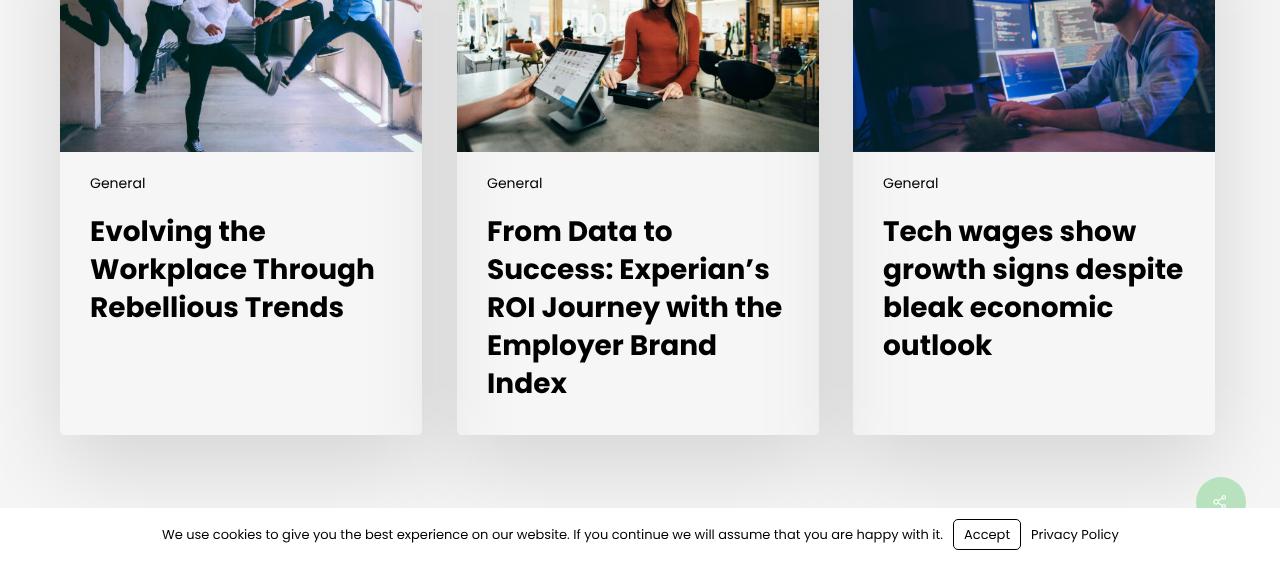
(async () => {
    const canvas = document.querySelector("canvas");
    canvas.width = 1280;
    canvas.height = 561;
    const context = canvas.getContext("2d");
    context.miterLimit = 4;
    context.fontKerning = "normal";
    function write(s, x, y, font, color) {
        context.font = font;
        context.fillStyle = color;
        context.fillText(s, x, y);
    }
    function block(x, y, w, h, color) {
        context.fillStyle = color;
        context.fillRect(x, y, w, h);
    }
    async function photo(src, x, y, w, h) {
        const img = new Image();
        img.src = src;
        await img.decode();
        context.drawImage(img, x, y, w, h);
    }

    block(0, 0, 1280, 561, "rgb(246, 246, 246)");
    context.save();
    context.beginPath();
    context.moveTo(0, 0);
    context.lineTo(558, 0);
    context.lineTo(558, 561);
    context.lineTo(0, 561);
    context.closePath();
    context.moveTo(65, -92);
    context.lineTo(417, -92);
    context.bezierCurveTo(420, -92, 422, -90, 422, -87);
    context.lineTo(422, 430);
    context.bezierCurveTo(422, 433, 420, 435, 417, 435);
    context.lineTo(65, 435);
    context.bezierCurveTo(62, 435, 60, 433, 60, 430);
    context.lineTo(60, -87);
    context.bezierCurveTo(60, -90, 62, -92, 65, -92);
    context.closePath();
    context.clip("evenodd");
    context.fillStyle = "rgba(0, 0, 0, 0.14)";
    context.filter = "blur(45px)";
    context.beginPath();
    context.roundRect(60, -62, 362, 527, 5);
    context.fill();
    context.filter = "none";
    context.restore();
    await photo("media/1.png", 60, 0, 362, 152);
    write("General", 90, 188, "14px Poppins", "rgb(0, 0, 0)");
    write("Evolving the", 90, 241, "bold 28px Poppins", "rgb(0, 0, 0)");
    write("Workplace Through", 90, 279, "bold 28px Poppins", "rgb(0, 0, 0)");
    write("Rebellious Trends", 90, 317, "bold 28px Poppins", "rgb(0, 0, 0)");
    context.save();
    context.beginPath();
    context.moveTo(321, 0);
    context.lineTo(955, 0);
    context.lineTo(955, 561);
    context.lineTo(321, 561);
    context.closePath();
    context.moveTo(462, -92);
    context.lineTo(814, -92);
    context.bezierCurveTo(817, -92, 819, -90, 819, -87);
    context.lineTo(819, 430);
    context.bezierCurveTo(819, 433, 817, 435, 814, 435);
    context.lineTo(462, 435);
    context.bezierCurveTo(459, 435, 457, 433, 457, 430);
    context.lineTo(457, -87);
    context.bezierCurveTo(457, -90, 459, -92, 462, -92);
    context.closePath();
    context.clip("evenodd");
    context.fillStyle = "rgba(0, 0, 0, 0.14)";
    context.filter = "blur(45px)";
    context.beginPath();
    context.roundRect(457, -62, 362, 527, 5);
    context.fill();
    context.filter = "none";
    context.restore();
    await photo("media/2.png", 457, 0, 362, 152);
    write("General", 487, 188, "14px Poppins", "rgb(0, 0, 0)");
    write("From Data to", 487, 241, "bold 28px Poppins", "rgb(0, 0, 0)");
    write("Success: Experian’s", 487, 279, "bold 28px Poppins", "rgb(0, 0, 0)");
    write("ROI Journey with the", 487, 317, "bold 28px Poppins", "rgb(0, 0, 0)");
    write("Employer Brand", 487, 355, "bold 28px Poppins", "rgb(0, 0, 0)");
    write("Index", 487, 393, "bold 28px Poppins", "rgb(0, 0, 0)");
    context.save();
    context.beginPath();
    context.moveTo(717, 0);
    context.lineTo(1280, 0);
    context.lineTo(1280, 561);
    context.lineTo(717, 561);
    context.closePath();
    context.moveTo(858, -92);
    context.lineTo(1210, -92);
    context.bezierCurveTo(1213, -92, 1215, -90, 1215, -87);
    context.lineTo(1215, 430);
    context.bezierCurveTo(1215, 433, 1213, 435, 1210, 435);
    context.lineTo(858, 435);
    context.bezierCurveTo(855, 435, 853, 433, 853, 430);
    context.lineTo(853, -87);
    context.bezierCurveTo(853, -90, 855, -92, 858, -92);
    context.closePath();
    context.clip("evenodd");
    context.fillStyle = "rgba(0, 0, 0, 0.14)";
    context.filter = "blur(45px)";
    context.beginPath();
    context.roundRect(853, -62, 362, 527, 5);
    context.fill();
    context.filter = "none";
    context.restore();
    await photo("media/3.png", 853, 0, 362, 152);
    write("General", 883, 188, "14px Poppins", "rgb(0, 0, 0)");
    write("Tech wages show", 883, 241, "bold 28px Poppins", "rgb(0, 0, 0)");
    write("growth signs despite", 883, 279, "bold 28px Poppins", "rgb(0, 0, 0)");
    write("bleak economic", 883, 317, "bold 28px Poppins", "rgb(0, 0, 0)");
    write("outlook", 883, 355, "bold 28px Poppins", "rgb(0, 0, 0)");
    context.fillStyle = "rgb(184, 226, 189)";
    context.beginPath();
    context.arc(1221, 502, 25, 0, Math.PI * 2);
    context.fill();
    await photo("media/4.png", 1213, 495, 13, 13);
    block(0, 508, 1280, 53, "rgb(255, 255, 255)");
    write("We use cookies to give you the best experience on our website. If you continue we will assume that you are happy with it.", 162, 539, "13px Poppins", "rgb(0, 0, 0)");
    context.beginPath();
    context.roundRect(953.5, 519.5, 67, 30, 4.5);
    context.strokeStyle = "rgb(0, 0, 0)";
    context.stroke();
    write("Accept", 964, 539, "13px Poppins", "rgb(0, 0, 0)");
    write("Privacy Policy", 1031, 539, "13px Poppins", "rgb(0, 0, 0)");
})();
